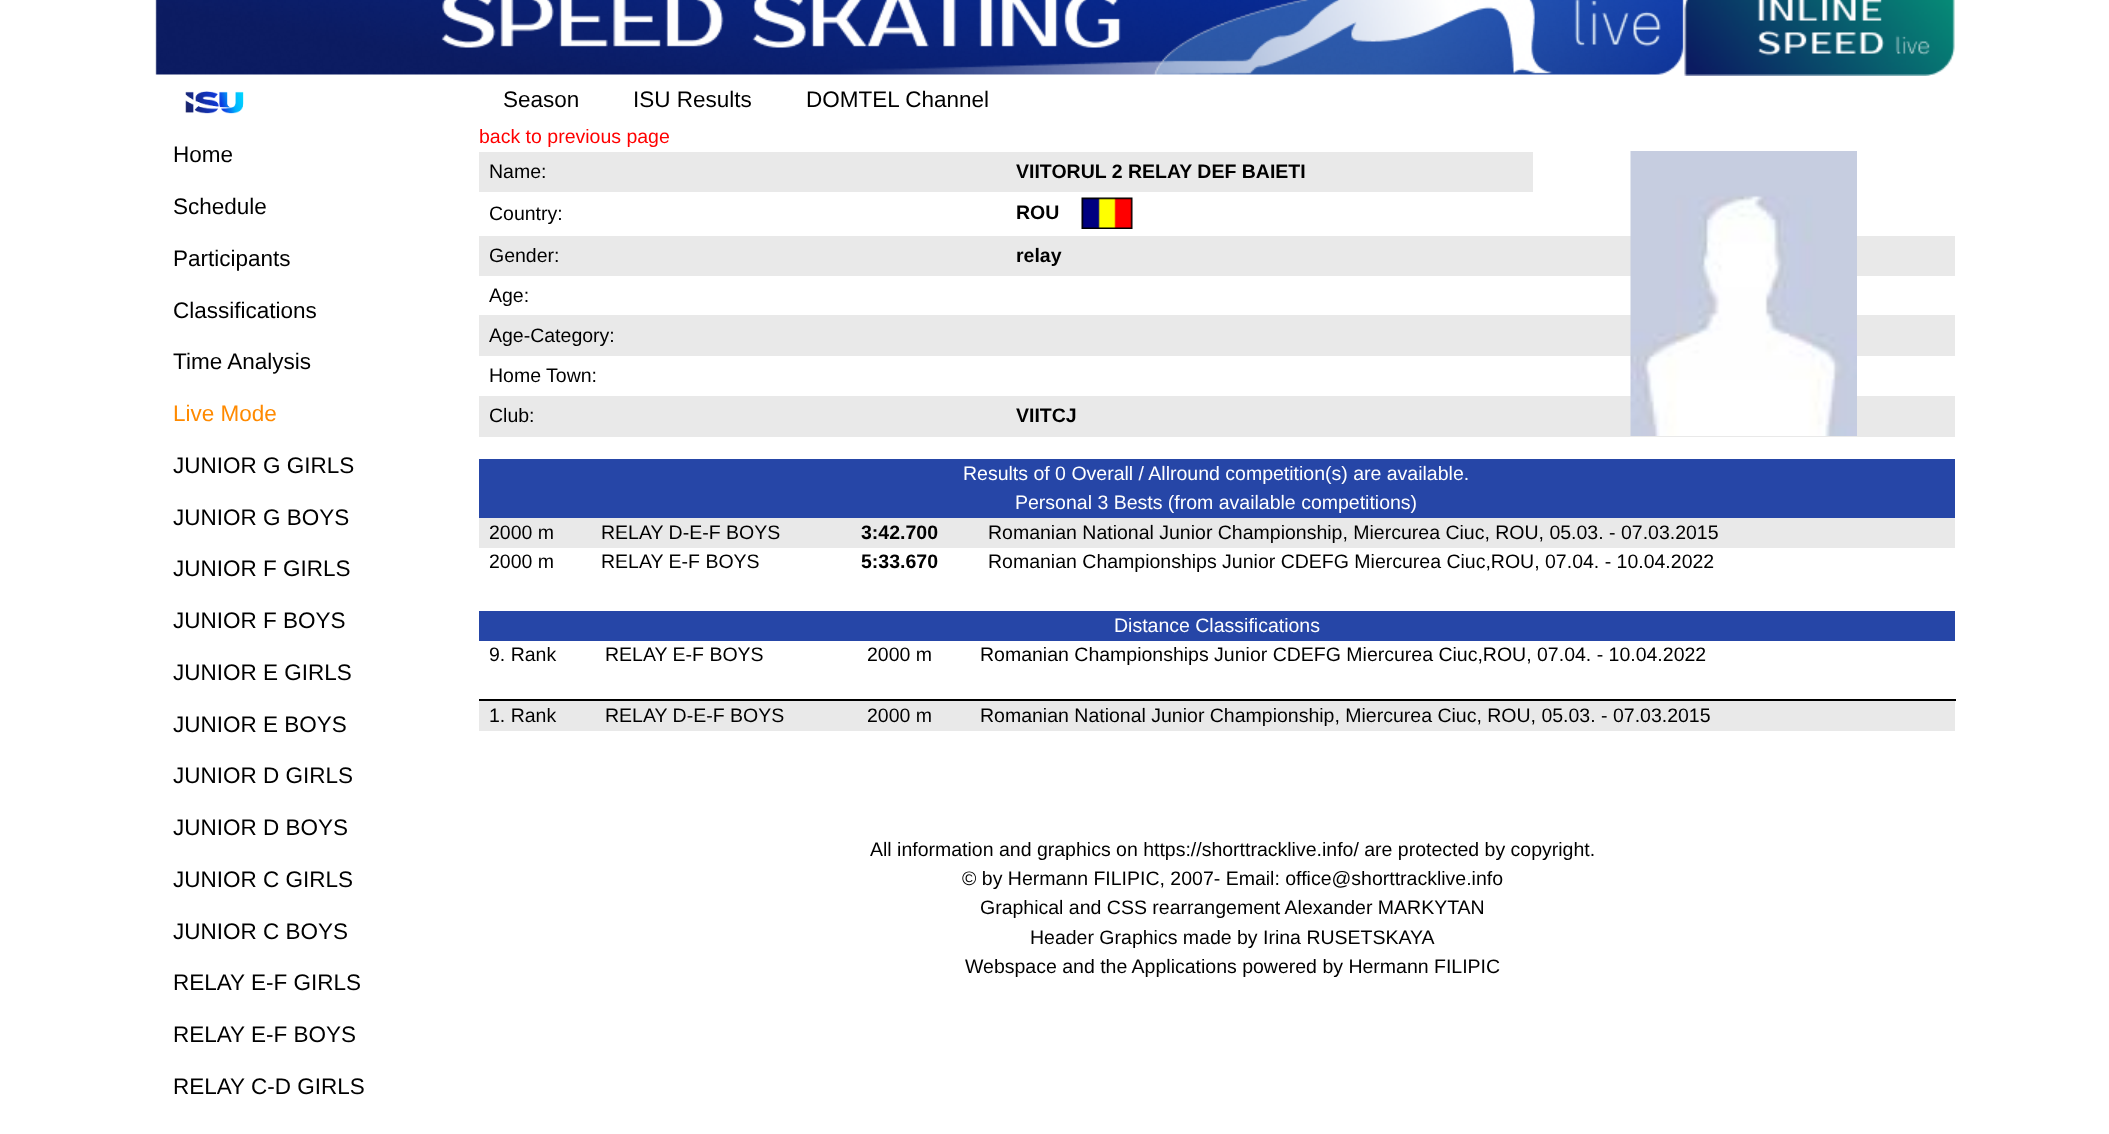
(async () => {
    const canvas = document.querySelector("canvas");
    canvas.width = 2109;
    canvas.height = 1134;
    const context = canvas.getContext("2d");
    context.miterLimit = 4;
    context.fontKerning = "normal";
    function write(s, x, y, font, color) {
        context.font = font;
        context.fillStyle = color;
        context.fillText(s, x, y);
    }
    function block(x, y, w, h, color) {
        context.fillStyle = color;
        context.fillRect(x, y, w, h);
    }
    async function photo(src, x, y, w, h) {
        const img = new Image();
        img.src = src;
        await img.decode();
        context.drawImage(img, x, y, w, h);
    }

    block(0, 0, 2109, 1134, "rgb(255, 255, 255)");
    await photo("media/1.png", 155, 0, 1529, 75);
    await photo("media/2.png", 1684, 0, 271, 76);
    write("Season", 503, 107, "22.5px Liberation Sans", "rgb(0, 0, 0)");
    write("ISU Results", 633, 107, "22.5px Liberation Sans", "rgb(0, 0, 0)");
    write("DOMTEL Channel", 806, 107, "22.5px Liberation Sans", "rgb(0, 0, 0)");
    await photo("media/3.png", 185, 91, 59, 23);
    write("Home", 173, 162, "22.5px Liberation Sans", "rgb(0, 0, 0)");
    write("Schedule", 173, 214, "22.5px Liberation Sans", "rgb(0, 0, 0)");
    write("Participants", 173, 266, "22.5px Liberation Sans", "rgb(0, 0, 0)");
    write("Classifications", 173, 318, "22.5px Liberation Sans", "rgb(0, 0, 0)");
    write("Time Analysis", 173, 369, "22.5px Liberation Sans", "rgb(0, 0, 0)");
    write("Live Mode", 173, 421, "22.5px Liberation Sans", "rgb(255, 138, 0)");
    write("JUNIOR G GIRLS", 173, 473, "22.5px Liberation Sans", "rgb(0, 0, 0)");
    write("JUNIOR G BOYS", 173, 525, "22.5px Liberation Sans", "rgb(0, 0, 0)");
    write("JUNIOR F GIRLS", 173, 576, "22.5px Liberation Sans", "rgb(0, 0, 0)");
    write("JUNIOR F BOYS", 173, 628, "22.5px Liberation Sans", "rgb(0, 0, 0)");
    write("JUNIOR E GIRLS", 173, 680, "22.5px Liberation Sans", "rgb(0, 0, 0)");
    write("JUNIOR E BOYS", 173, 732, "22.5px Liberation Sans", "rgb(0, 0, 0)");
    write("JUNIOR D GIRLS", 173, 783, "22.5px Liberation Sans", "rgb(0, 0, 0)");
    write("JUNIOR D BOYS", 173, 835, "22.5px Liberation Sans", "rgb(0, 0, 0)");
    write("JUNIOR C GIRLS", 173, 887, "22.5px Liberation Sans", "rgb(0, 0, 0)");
    write("JUNIOR C BOYS", 173, 939, "22.5px Liberation Sans", "rgb(0, 0, 0)");
    write("RELAY E-F GIRLS", 173, 990, "22.5px Liberation Sans", "rgb(0, 0, 0)");
    write("RELAY E-F BOYS", 173, 1042, "22.5px Liberation Sans", "rgb(0, 0, 0)");
    write("RELAY C-D GIRLS", 173, 1094, "22.5px Liberation Sans", "rgb(0, 0, 0)");
    write("back to previous page", 479, 143, "19.5px Liberation Sans", "rgb(255, 0, 0)");
    block(479, 152, 1054, 40, "rgb(233, 233, 233)");
    write("Name:", 489, 178, "19.5px Liberation Sans", "rgb(0, 0, 0)");
    write("VIITORUL 2 RELAY DEF BAIETI", 1016, 178, "bold 19.5px Liberation Sans", "rgb(0, 0, 0)");
    block(479, 236, 1476, 40, "rgb(233, 233, 233)");
    block(479, 315, 1476, 41, "rgb(233, 233, 233)");
    block(479, 396, 1476, 41, "rgb(233, 233, 233)");
    await photo("media/4.png", 1630, 151, 227, 285);
    write("Country:", 489, 220, "19.5px Liberation Sans", "rgb(0, 0, 0)");
    write("ROU", 1016, 219, "bold 19.5px Liberation Sans", "rgb(0, 0, 0)");
    await photo("media/5.png", 1081, 197, 52, 32);
    write("Gender:", 489, 262, "19.5px Liberation Sans", "rgb(0, 0, 0)");
    write("relay", 1016, 262, "bold 19.5px Liberation Sans", "rgb(0, 0, 0)");
    write("Age:", 489, 302, "19.5px Liberation Sans", "rgb(0, 0, 0)");
    write("Age-Category:", 489, 342, "19.5px Liberation Sans", "rgb(0, 0, 0)");
    write("Home Town:", 489, 382, "19.5px Liberation Sans", "rgb(0, 0, 0)");
    write("Club:", 489, 422, "19.5px Liberation Sans", "rgb(0, 0, 0)");
    write("VIITCJ", 1016, 422, "bold 19.5px Liberation Sans", "rgb(0, 0, 0)");
    block(479, 459, 1476, 59, "rgb(38, 70, 167)");
    write("Results of 0 Overall / Allround competition(s) are available.", 963, 480, "19.5px Liberation Sans", "rgb(255, 255, 255)");
    write("Personal 3 Bests (from available competitions)", 1015, 509, "19.5px Liberation Sans", "rgb(255, 255, 255)");
    block(479, 518, 1476, 30, "rgb(233, 233, 233)");
    write("2000 m", 489, 539, "19.5px Liberation Sans", "rgb(0, 0, 0)");
    write("RELAY D-E-F BOYS", 601, 539, "19.5px Liberation Sans", "rgb(0, 0, 0)");
    write("3:42.700", 861, 539, "bold 19.5px Liberation Sans", "rgb(0, 0, 0)");
    write("Romanian National Junior Championship, Miercurea Ciuc, ROU, 05.03. - 07.03.2015", 988, 539, "19.5px Liberation Sans", "rgb(0, 0, 0)");
    write("2000 m", 489, 568, "19.5px Liberation Sans", "rgb(0, 0, 0)");
    write("RELAY E-F BOYS", 601, 568, "19.5px Liberation Sans", "rgb(0, 0, 0)");
    write("5:33.670", 861, 568, "bold 19.5px Liberation Sans", "rgb(0, 0, 0)");
    write("Romanian Championships Junior CDEFG Miercurea Ciuc,ROU, 07.04. - 10.04.2022", 988, 568, "19.5px Liberation Sans", "rgb(0, 0, 0)");
    block(479, 611, 1476, 30, "rgb(38, 70, 167)");
    write("Distance Classifications", 1114, 632, "19.5px Liberation Sans", "rgb(255, 255, 255)");
    write("9. Rank", 489, 661, "19.5px Liberation Sans", "rgb(0, 0, 0)");
    write("RELAY E-F BOYS", 605, 661, "19.5px Liberation Sans", "rgb(0, 0, 0)");
    write("2000 m", 867, 661, "19.5px Liberation Sans", "rgb(0, 0, 0)");
    write("Romanian Championships Junior CDEFG Miercurea Ciuc,ROU, 07.04. - 10.04.2022", 980, 661, "19.5px Liberation Sans", "rgb(0, 0, 0)");
    block(479, 699, 1477, 2, "rgb(0, 0, 0)");
    block(479, 701, 1476, 30, "rgb(233, 233, 233)");
    write("1. Rank", 489, 722, "19.5px Liberation Sans", "rgb(0, 0, 0)");
    write("RELAY D-E-F BOYS", 605, 722, "19.5px Liberation Sans", "rgb(0, 0, 0)");
    write("2000 m", 867, 722, "19.5px Liberation Sans", "rgb(0, 0, 0)");
    write("Romanian National Junior Championship, Miercurea Ciuc, ROU, 05.03. - 07.03.2015", 980, 722, "19.5px Liberation Sans", "rgb(0, 0, 0)");
    write("All information and graphics on https://shorttracklive.info/ are protected by copyright.", 870, 856, "19.5px Liberation Sans", "rgb(0, 0, 0)");
    write("© by Hermann FILIPIC, 2007- Email: office@shorttracklive.info", 962, 885, "19.5px Liberation Sans", "rgb(0, 0, 0)");
    write("Graphical and CSS rearrangement Alexander MARKYTAN", 980, 914, "19.5px Liberation Sans", "rgb(0, 0, 0)");
    write("Header Graphics made by Irina RUSETSKAYA", 1030, 944, "19.5px Liberation Sans", "rgb(0, 0, 0)");
    write("Webspace and the Applications powered by Hermann FILIPIC", 965, 973, "19.5px Liberation Sans", "rgb(0, 0, 0)");
})();
